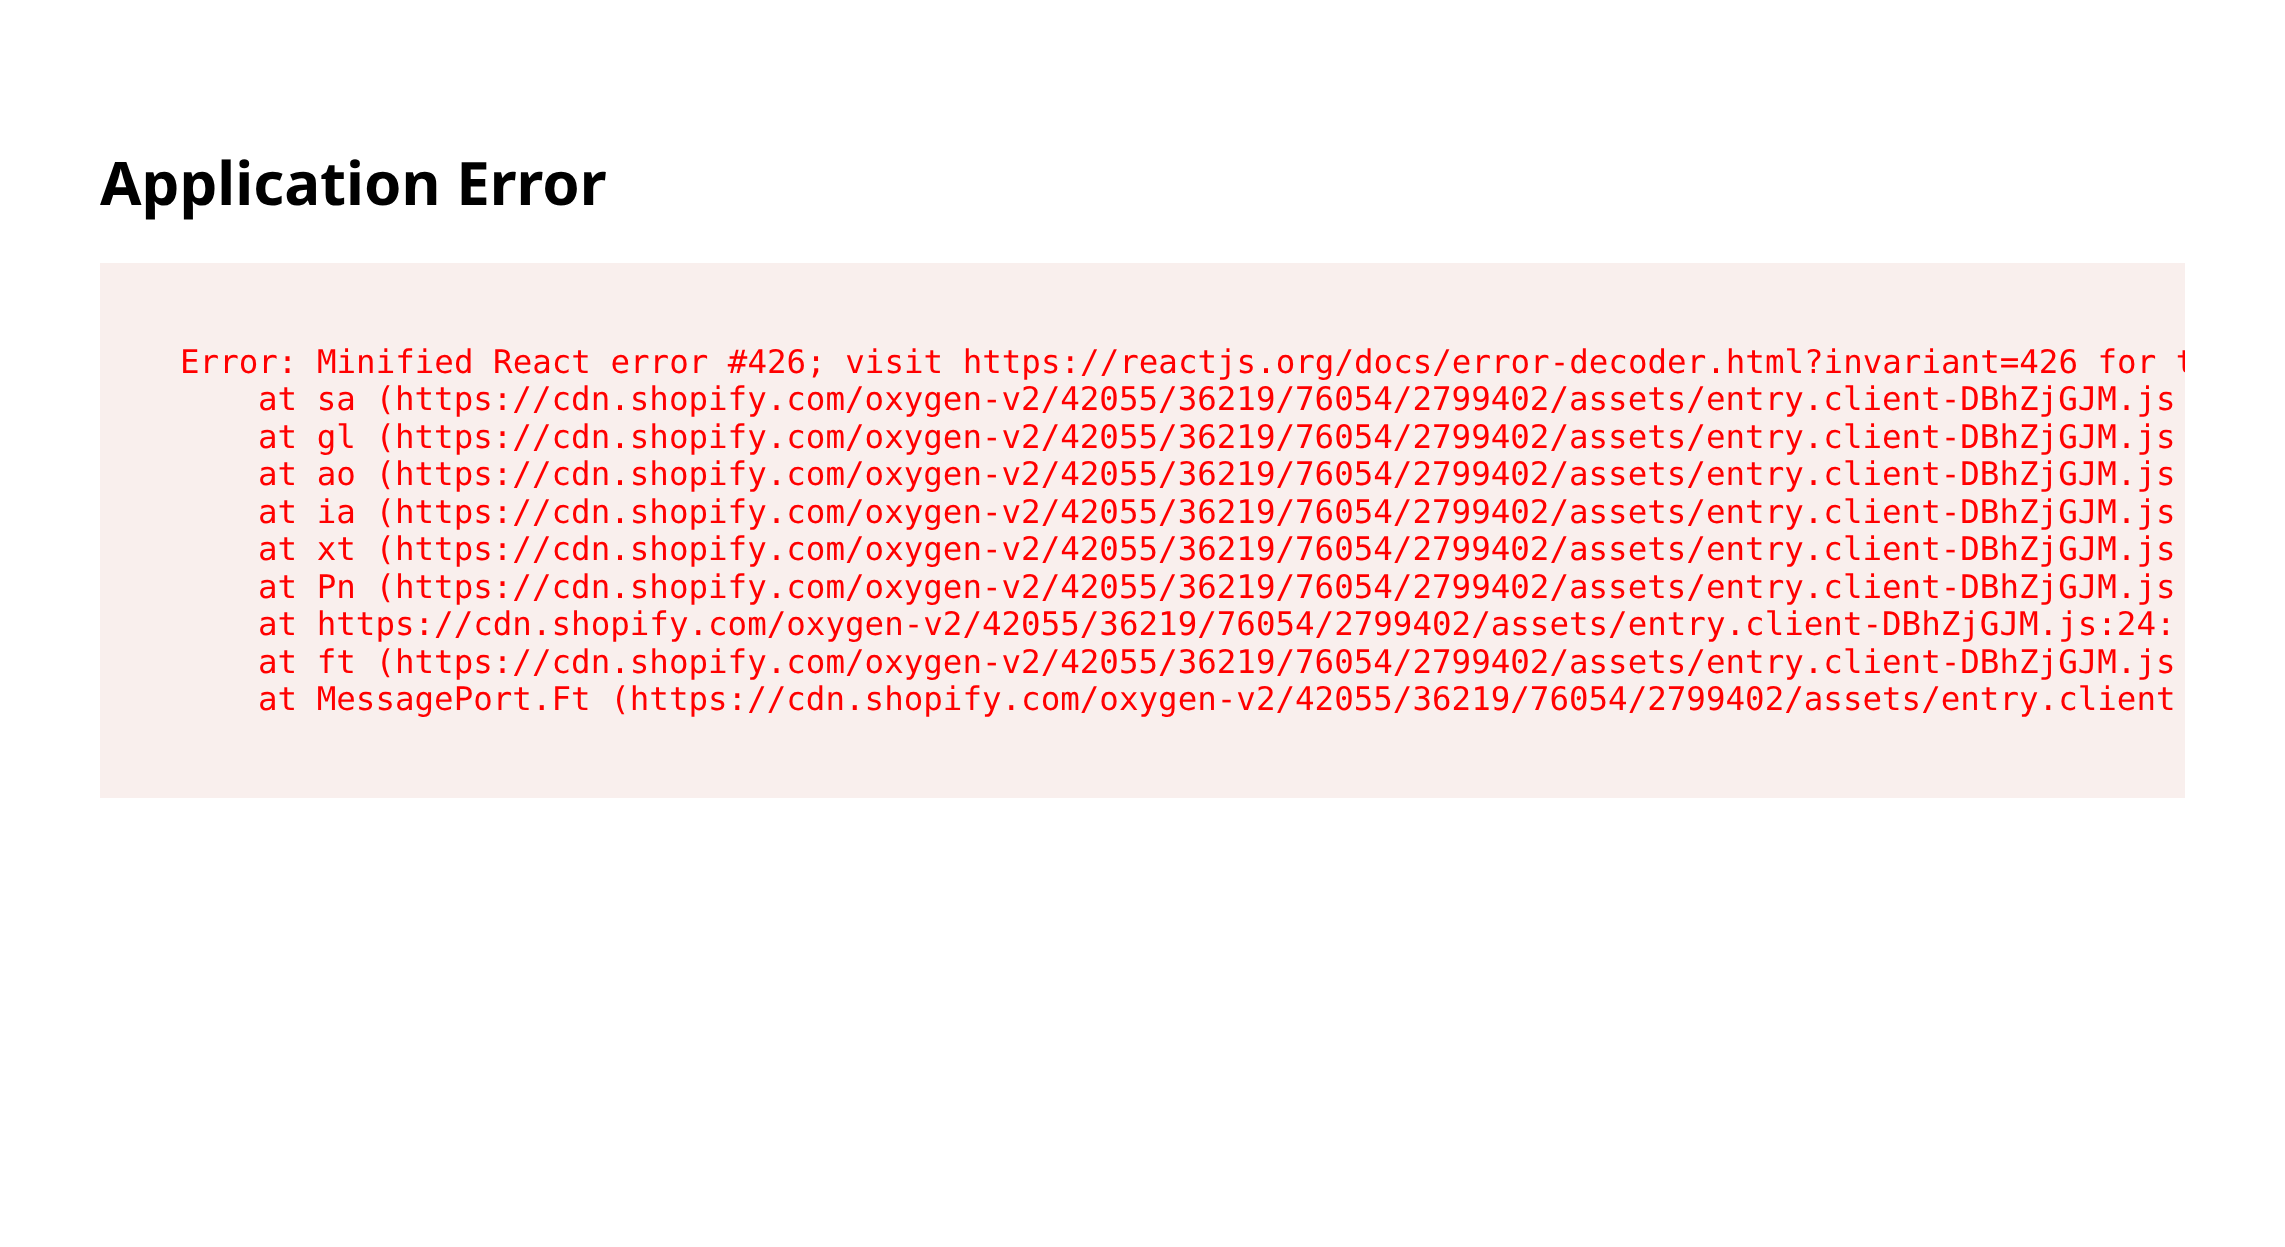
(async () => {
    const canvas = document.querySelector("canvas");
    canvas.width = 2285;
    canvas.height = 1247;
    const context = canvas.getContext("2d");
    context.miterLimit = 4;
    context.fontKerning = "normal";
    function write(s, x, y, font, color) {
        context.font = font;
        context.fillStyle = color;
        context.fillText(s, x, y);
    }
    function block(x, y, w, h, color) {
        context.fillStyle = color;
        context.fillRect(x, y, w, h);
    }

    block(0, 0, 2285, 1247, "rgb(255, 255, 255)");
    write("Application Error", 100, 205, "bold 60px Noto Sans", "rgb(0, 0, 0)");
    block(100, 263, 2085, 535, "rgb(249, 239, 237)");
    context.save();
    context.beginPath();
    context.rect(100, 263, 2085, 535);
    context.clip();
    write("Error: Minified React error #426; visit https://reactjs.org/docs/error-decoder.html?invariant=426 for t", 180, 373, "32.5px DejaVu Sans Mono", "rgb(255, 0, 0)");
    context.restore();
    write("at sa (https://cdn.shopify.com/oxygen-v2/42055/36219/76054/2799402/assets/entry.client-DBhZjGJM.js", 258, 410, "32.5px DejaVu Sans Mono", "rgb(255, 0, 0)");
    write("at gl (https://cdn.shopify.com/oxygen-v2/42055/36219/76054/2799402/assets/entry.client-DBhZjGJM.js", 258, 448, "32.5px DejaVu Sans Mono", "rgb(255, 0, 0)");
    write("at ao (https://cdn.shopify.com/oxygen-v2/42055/36219/76054/2799402/assets/entry.client-DBhZjGJM.js", 258, 485, "32.5px DejaVu Sans Mono", "rgb(255, 0, 0)");
    write("at ia (https://cdn.shopify.com/oxygen-v2/42055/36219/76054/2799402/assets/entry.client-DBhZjGJM.js", 258, 523, "32.5px DejaVu Sans Mono", "rgb(255, 0, 0)");
    write("at xt (https://cdn.shopify.com/oxygen-v2/42055/36219/76054/2799402/assets/entry.client-DBhZjGJM.js", 258, 560, "32.5px DejaVu Sans Mono", "rgb(255, 0, 0)");
    write("at Pn (https://cdn.shopify.com/oxygen-v2/42055/36219/76054/2799402/assets/entry.client-DBhZjGJM.js", 258, 598, "32.5px DejaVu Sans Mono", "rgb(255, 0, 0)");
    write("at https://cdn.shopify.com/oxygen-v2/42055/36219/76054/2799402/assets/entry.client-DBhZjGJM.js:24:", 258, 635, "32.5px DejaVu Sans Mono", "rgb(255, 0, 0)");
    write("at ft (https://cdn.shopify.com/oxygen-v2/42055/36219/76054/2799402/assets/entry.client-DBhZjGJM.js", 258, 673, "32.5px DejaVu Sans Mono", "rgb(255, 0, 0)");
    write("at MessagePort.Ft (https://cdn.shopify.com/oxygen-v2/42055/36219/76054/2799402/assets/entry.client", 258, 710, "32.5px DejaVu Sans Mono", "rgb(255, 0, 0)");
})();
